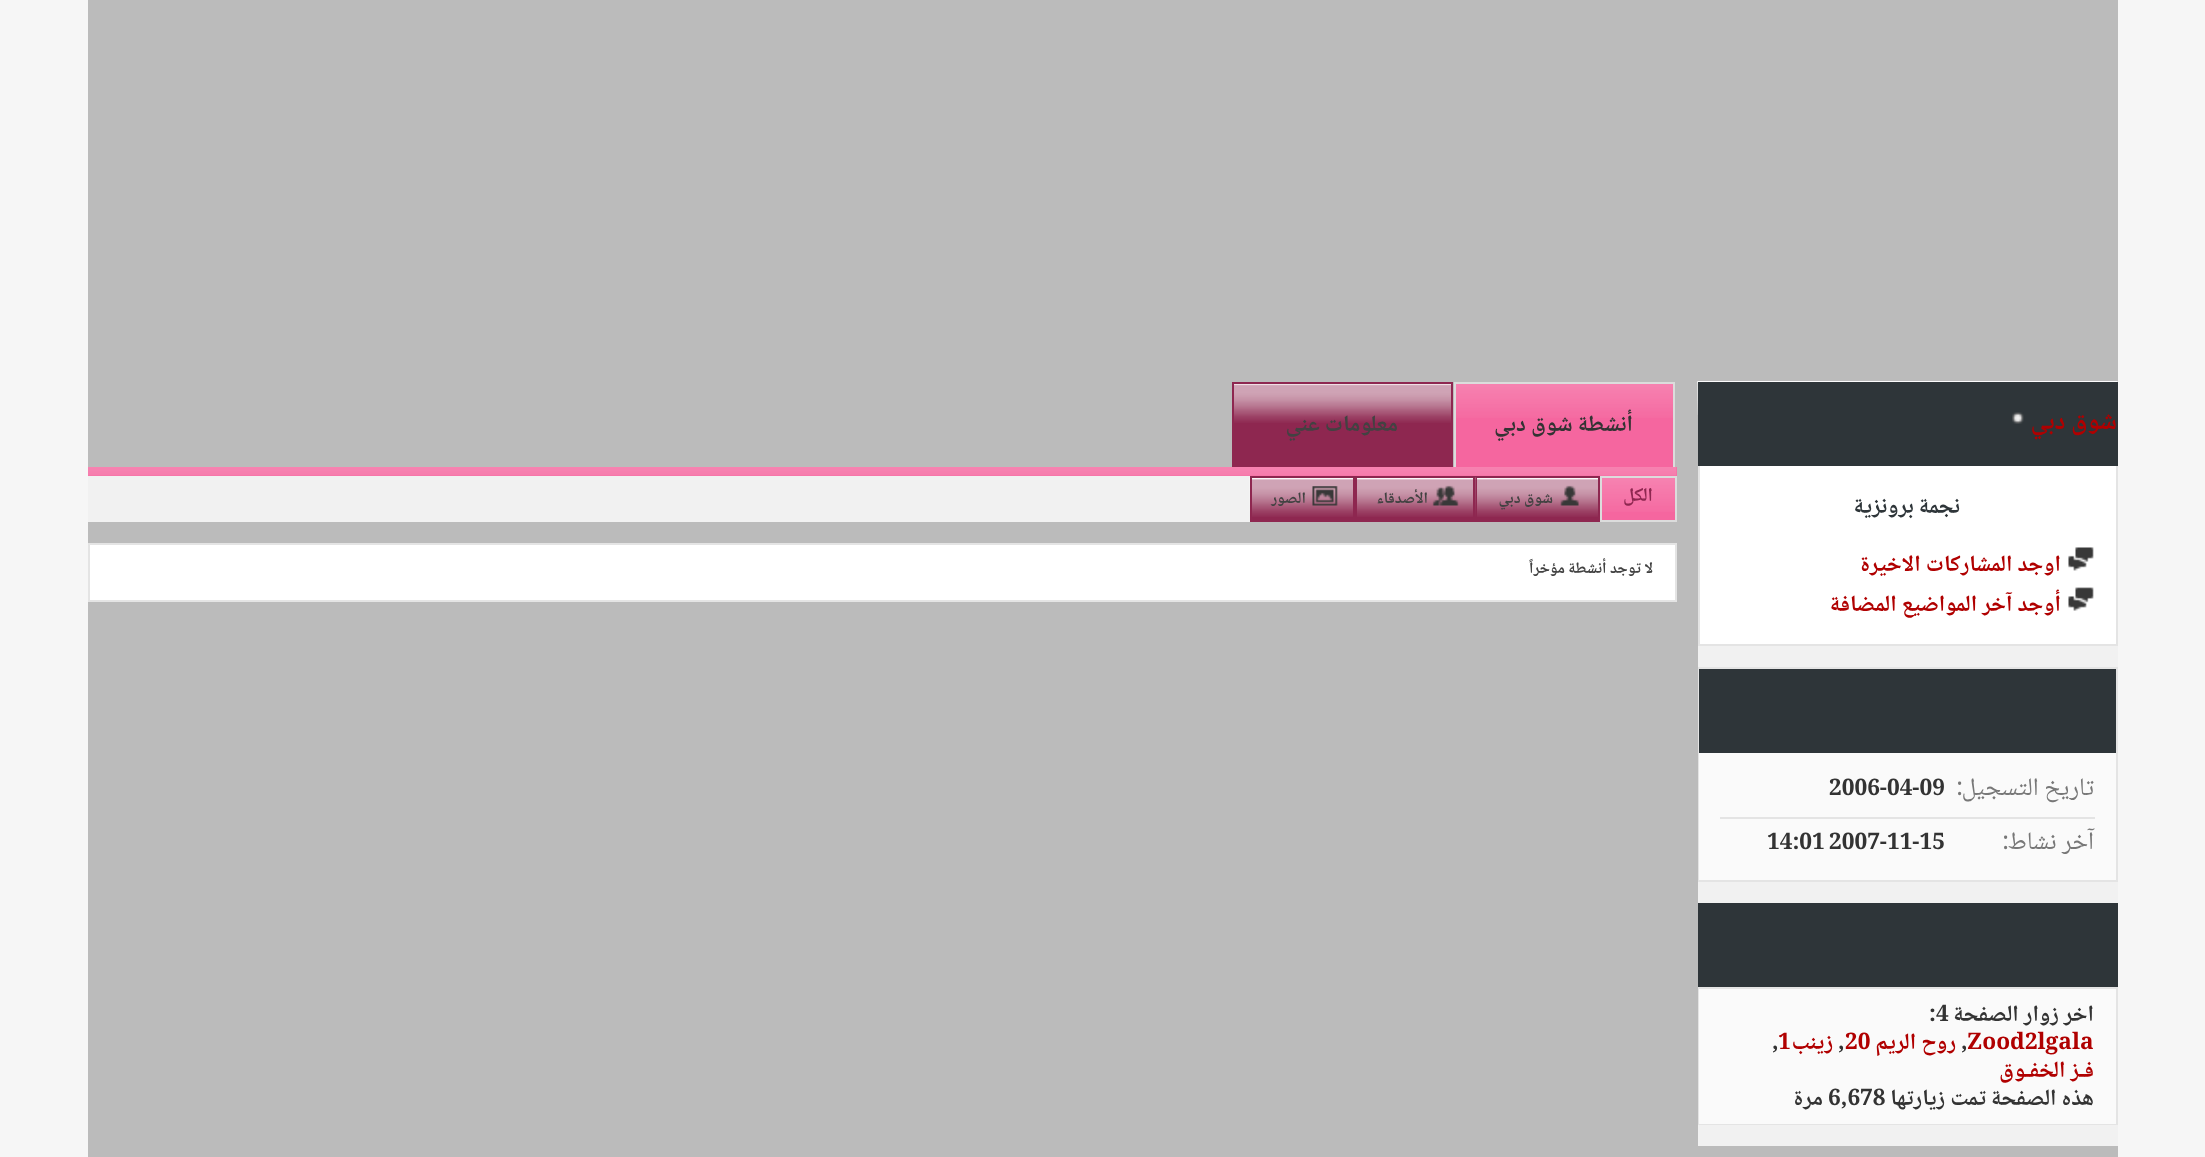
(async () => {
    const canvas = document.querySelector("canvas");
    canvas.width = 2205;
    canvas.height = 1157;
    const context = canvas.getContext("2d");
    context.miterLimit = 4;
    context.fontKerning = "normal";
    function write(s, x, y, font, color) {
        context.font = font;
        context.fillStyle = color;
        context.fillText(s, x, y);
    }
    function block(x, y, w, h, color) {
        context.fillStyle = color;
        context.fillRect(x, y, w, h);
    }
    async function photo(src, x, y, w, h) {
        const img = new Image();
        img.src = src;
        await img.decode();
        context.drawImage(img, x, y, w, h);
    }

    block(0, 0, 2205, 1157, "rgb(246, 246, 246)");
    block(88, 0, 2030, 1157, "rgb(187, 187, 187)");
    block(1698, 646, 420, 500, "rgb(241, 241, 241)");
    await photo("media/1.png", 1697, 381, 421, 34);
    await photo("media/2.png", 1697, 381, 421, 34);
    block(1698, 382, 420, 84, "rgb(46, 53, 57)");
    context.direction = "rtl";
    write("شوق دبي", 2117, 429, "bold 25px Noto Naskh Arabic", "rgb(176, 0, 0)");
    await photo("media/3.png", 2012, 412, 12, 12);
    block(1700, 466, 416, 178, "rgb(255, 255, 255)");
    block(2116, 466, 2, 180, "rgb(228, 228, 228)");
    block(1698, 644, 420, 2, "rgb(228, 228, 228)");
    block(1698, 466, 2, 180, "rgb(228, 228, 228)");
    write("نجمة برونزية", 1960, 513, "bold 22.75px Noto Naskh Arabic", "rgb(46, 53, 57)");
    await photo("media/4.png", 2068, 547, 26, 24);
    write("اوجد المشاركات الاخيرة", 2061, 571, "bold 22.75px Noto Naskh Arabic", "rgb(176, 0, 0)");
    await photo("media/5.png", 2068, 587, 26, 24);
    write("أوجد آخر المواضيع المضافة", 2061, 611, "bold 22.75px Noto Naskh Arabic", "rgb(176, 0, 0)");
    context.strokeStyle = "rgb(228, 228, 228)";
    context.lineWidth = 2;
    context.strokeRect(1699, 668, 418, 213);
    block(1699, 669, 417, 84, "rgb(46, 53, 57)");
    block(1699, 753, 417, 127, "rgb(250, 250, 250)");
    block(1720, 817, 375, 2, "rgb(228, 228, 228)");
    write("تاريخ التسجيل", 2094, 795, "25px Noto Naskh Arabic", "rgb(119, 119, 119)");
    context.direction = "ltr";
    write(":", 1956, 795, "25px Noto Naskh Arabic", "rgb(119, 119, 119)");
    write("2006-04-09", 1829, 795, "bold 22.75px Noto Naskh Arabic", "rgb(51, 51, 51)");
    context.direction = "rtl";
    write("آخر نشاط", 2094, 849, "25px Noto Naskh Arabic", "rgb(119, 119, 119)");
    context.direction = "ltr";
    write(":", 2002, 849, "25px Noto Naskh Arabic", "rgb(119, 119, 119)");
    write("2007-11-15", 1829, 849, "bold 22.75px Noto Naskh Arabic", "rgb(51, 51, 51)");
    write("14:01", 1767, 849, "bold 22.75px Noto Naskh Arabic", "rgb(51, 51, 51)");
    block(1698, 903, 420, 84, "rgb(46, 53, 57)");
    context.strokeRect(1699, 988, 418, 136);
    block(1699, 989, 417, 135, "rgb(250, 250, 250)");
    context.direction = "rtl";
    write("اخر زوار الصفحة", 2094, 1021, "bold 22.75px Noto Naskh Arabic", "rgb(51, 51, 51)");
    context.direction = "ltr";
    write(":4", 1929, 1021, "bold 22.75px Noto Naskh Arabic", "rgb(51, 51, 51)");
    write("Zood2lgala", 1967, 1049, "bold 22.75px Noto Naskh Arabic", "rgb(176, 0, 0)");
    write(",", 1961, 1049, "bold 22.75px Noto Naskh Arabic", "rgb(51, 51, 51)");
    context.direction = "rtl";
    write("روح الريم", 1956, 1049, "bold 22.75px Noto Naskh Arabic", "rgb(176, 0, 0)");
    context.direction = "ltr";
    write("20", 1845, 1049, "bold 22.75px Noto Naskh Arabic", "rgb(176, 0, 0)");
    write(",", 1838, 1049, "bold 22.75px Noto Naskh Arabic", "rgb(51, 51, 51)");
    context.direction = "rtl";
    write("زينب", 1833, 1049, "bold 22.75px Noto Naskh Arabic", "rgb(176, 0, 0)");
    context.direction = "ltr";
    write("1", 1778, 1049, "bold 22.75px Noto Naskh Arabic", "rgb(176, 0, 0)");
    write(",", 1772, 1049, "bold 22.75px Noto Naskh Arabic", "rgb(51, 51, 51)");
    context.direction = "rtl";
    write("فـز الخفـوق", 2094, 1077, "bold 22.75px Noto Naskh Arabic", "rgb(176, 0, 0)");
    write("هذه الصفحة تمت زيارتها", 2094, 1105, "bold 22.75px Noto Naskh Arabic", "rgb(51, 51, 51)");
    context.direction = "ltr";
    write("6,678", 1828, 1105, "bold 22.75px Noto Naskh Arabic", "rgb(51, 51, 51)");
    context.direction = "rtl";
    write("مرة", 1823, 1105, "bold 22.75px Noto Naskh Arabic", "rgb(51, 51, 51)");
    block(1456, 384, 217, 83, "rgb(245, 102, 159)");
    await photo("media/6.png", 1456, 384, 217, 34);
    block(1454, 382, 221, 2, "rgb(220, 220, 220)");
    block(1673, 382, 2, 85, "rgb(220, 220, 220)");
    block(1454, 382, 2, 85, "rgb(220, 220, 220)");
    write("أنشطة شوق دبي", 1633, 431, "bold 22.75px Noto Naskh Arabic", "rgb(51, 51, 51)");
    block(1234, 384, 217, 83, "rgb(142, 39, 80)");
    await photo("media/7.png", 1234, 384, 217, 39);
    block(1232, 382, 221, 2, "rgb(142, 39, 80)");
    block(1451, 382, 2, 85, "rgb(142, 39, 80)");
    block(1232, 382, 2, 85, "rgb(142, 39, 80)");
    write("معلومات عني", 1398, 431, "bold 22.75px Noto Naskh Arabic", "rgb(66, 66, 66)");
    block(88, 467, 1589, 9, "rgb(245, 102, 159)");
    await photo("media/8.png", 88, 467, 1589, 9);
    block(88, 476, 1162, 46, "rgb(241, 241, 241)");
    block(1602, 478, 73, 42, "rgb(245, 102, 159)");
    await photo("media/9.png", 1602, 478, 73, 34);
    context.strokeStyle = "rgb(220, 220, 220)";
    context.strokeRect(1601, 477, 75, 44);
    write("الكل", 1653, 501, "bold 19px Noto Naskh Arabic", "rgb(142, 39, 80)");
    block(1477, 478, 121, 42, "rgb(142, 39, 80)");
    await photo("media/10.png", 1477, 478, 121, 39);
    context.strokeStyle = "rgb(142, 39, 80)";
    context.strokeRect(1476, 477, 123, 44);
    await photo("media/11.png", 1560, 485, 19, 21);
    write("شوق دبي", 1553, 503, "bold 15.75px Noto Naskh Arabic", "rgb(66, 66, 66)");
    block(1357, 478, 116, 42, "rgb(142, 39, 80)");
    await photo("media/12.png", 1357, 477, 119, 40);
    context.strokeRect(1356, 477, 118, 44);
    await photo("media/13.png", 1432, 485, 27, 21);
    write("الأصدقاء", 1428, 503, "bold 15.75px Noto Naskh Arabic", "rgb(66, 66, 66)");
    block(1252, 478, 101, 42, "rgb(142, 39, 80)");
    await photo("media/14.png", 1249, 477, 104, 40);
    context.strokeRect(1251, 477, 103, 44);
    await photo("media/15.png", 1312, 486, 26, 20);
    write("الصور", 1306, 503, "bold 15.75px Noto Naskh Arabic", "rgb(66, 66, 66)");
    context.fillStyle = "rgb(255, 255, 255)";
    context.beginPath();
    context.rect(89, 544, 1587, 57);
    context.fill();
    context.strokeStyle = "rgb(228, 228, 228)";
    context.stroke();
    write("لا توجد أنشطة", 1653, 573, "bold 15.75px Noto Naskh Arabic", "rgb(66, 66, 66)");
    write("مؤخراً", 1565, 573, "bold 15.75px Noto Naskh Arabic", "rgb(66, 66, 66)");
})();
